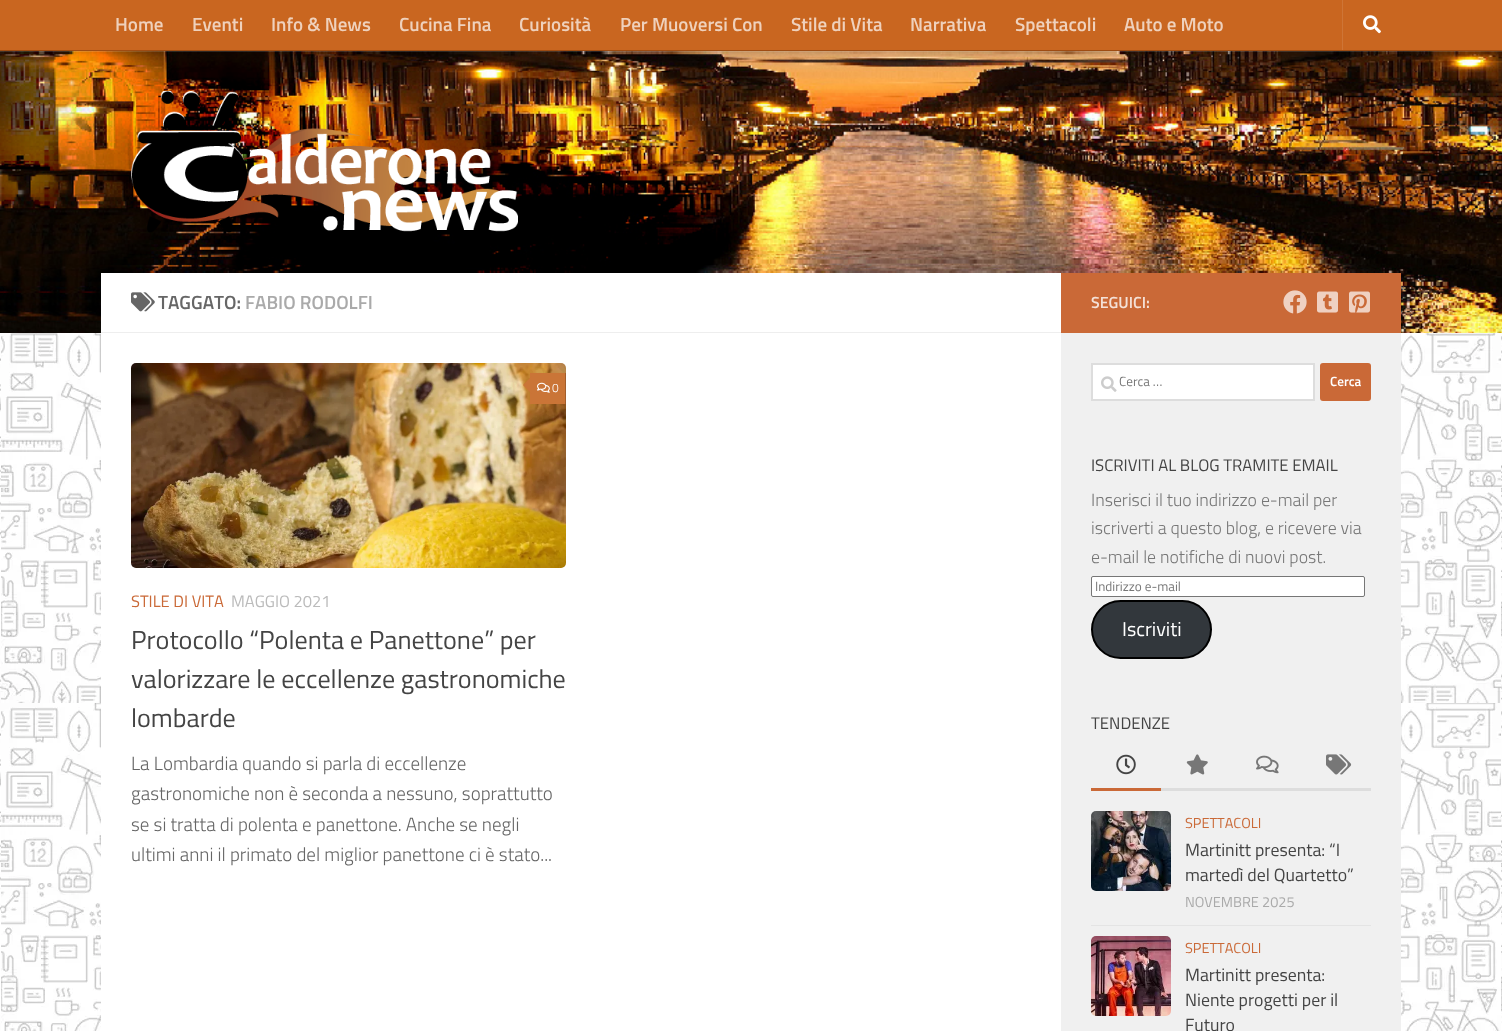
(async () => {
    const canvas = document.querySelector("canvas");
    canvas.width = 1502;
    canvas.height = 1031;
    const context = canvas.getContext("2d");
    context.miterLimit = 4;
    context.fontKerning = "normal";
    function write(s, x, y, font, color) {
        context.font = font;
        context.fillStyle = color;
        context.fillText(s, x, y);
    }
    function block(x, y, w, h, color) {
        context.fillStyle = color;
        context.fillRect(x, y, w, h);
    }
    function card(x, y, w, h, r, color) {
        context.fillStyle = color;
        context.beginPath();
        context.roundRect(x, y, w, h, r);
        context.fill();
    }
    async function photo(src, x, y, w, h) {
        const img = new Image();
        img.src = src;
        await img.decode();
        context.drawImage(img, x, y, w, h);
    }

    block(0, 0, 1502, 1031, "rgb(255, 255, 255)");
    await photo("media/1.png", 0, 333, 1502, 698);
    await photo("media/2.png", 0, 51, 1502, 282);
    block(0, 51, 1502, 1, "rgba(255, 255, 255, 0.15)");
    context.fillStyle = "rgba(0, 0, 0, 0.2)";
    context.filter = "blur(2.5px)";
    context.beginPath();
    context.rect(0, 0, 1502, 51);
    context.fill();
    context.filter = "none";
    block(0, 0, 1502, 50, "rgb(201, 102, 32)");
    block(0, 50, 1502, 1, "rgb(158, 76, 19)");
    write("Home", 115, 31, "600 19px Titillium", "rgb(239, 209, 188)");
    write("Eventi", 192, 31, "600 19px Titillium", "rgb(239, 209, 188)");
    write("Info & News", 271, 31, "600 19px Titillium", "rgb(239, 209, 188)");
    write("Cucina Fina", 399, 31, "600 19px Titillium", "rgb(239, 209, 188)");
    write("Curiosità", 519, 31, "600 19px Titillium", "rgb(239, 209, 188)");
    write("Per Muoversi Con", 620, 31, "600 19px Titillium", "rgb(239, 209, 188)");
    write("Stile di Vita", 791, 31, "600 19px Titillium", "rgb(239, 209, 188)");
    write("Narrativa", 910, 31, "600 19px Titillium", "rgb(239, 209, 188)");
    write("Spettacoli", 1015, 31, "600 19px Titillium", "rgb(239, 209, 188)");
    write("Auto e Moto", 1124, 31, "600 19px Titillium", "rgb(239, 209, 188)");
    block(1342, 0, 1, 50, "rgb(206, 117, 54)");
    await photo("media/3.png", 1363, 15, 18, 19);
    await photo("media/4.png", 131, 91, 387, 142);
    block(101, 273, 960, 758, "rgb(255, 255, 255)");
    block(101, 332, 960, 1, "rgb(238, 238, 238)");
    await photo("media/5.png", 131, 292, 24, 20);
    write("TAGGATO:", 158, 309, "600 19px Titillium", "rgb(102, 102, 102)");
    write("FABIO RODOLFI", 245, 309, "600 19px Titillium", "rgb(170, 170, 170)");
    await photo("media/6.png", 131, 363, 435, 205);
    block(530, 373, 35, 31, "rgb(202, 117, 55)");
    block(565, 373, 1, 31, "rgb(162, 94, 44)");
    context.fillStyle = "rgb(202, 117, 55)";
    context.beginPath();
    context.moveTo(532, 376);
    context.lineTo(532, 394);
    context.lineTo(523, 385);
    context.closePath();
    context.fill();
    await photo("media/7.png", 537, 382, 13, 11);
    write("0", 552, 392, "300 12px Titillium", "rgb(255, 255, 255)");
    write("STILE DI VITA", 131, 607, "16.5px Titillium", "rgb(202, 105, 55)");
    write("MAGGIO 2021", 231, 607, "16.5px Titillium", "rgb(187, 187, 187)");
    write("Protocollo “Polenta e Panettone” per", 131, 649, "26.2px Titillium", "rgb(68, 68, 68)");
    write("valorizzare le eccellenze gastronomiche", 131, 688, "26.2px Titillium", "rgb(68, 68, 68)");
    write("lombarde", 131, 727, "26.2px Titillium", "rgb(68, 68, 68)");
    write("La Lombardia quando si parla di eccellenze", 131, 770, "300 19px Titillium", "rgb(102, 102, 102)");
    write("gastronomiche non è seconda a nessuno, soprattutto", 131, 800, "300 19px Titillium", "rgb(102, 102, 102)");
    write("se si tratta di polenta e panettone. Anche se negli", 131, 831, "300 19px Titillium", "rgb(102, 102, 102)");
    write("ultimi anni il primato del miglior panettone ci è stato...", 131, 861, "300 19px Titillium", "rgb(102, 102, 102)");
    block(1061, 273, 340, 60, "rgb(202, 105, 55)");
    write("SEGUICI:", 1091, 308, "600 16px Titillium", "rgb(244, 225, 215)");
    await photo("media/8.png", 1283, 290, 24, 24);
    await photo("media/9.png", 1317, 291, 21, 22);
    await photo("media/10.png", 1349, 291, 21, 22);
    block(1061, 333, 340, 698, "rgb(240, 240, 240)");
    context.fillStyle = "rgb(255, 255, 255)";
    context.beginPath();
    context.rect(1092, 364, 222, 36);
    context.fill();
    context.strokeStyle = "rgb(221, 221, 221)";
    context.lineWidth = 2;
    context.stroke();
    await photo("media/11.png", 1101, 376, 16, 16);
    write("Cerca …", 1119, 386, "13.25px Titillium", "rgb(119, 119, 119)");
    card(1320, 363, 51, 38, 3, "rgb(202, 105, 55)");
    write("Cerca", 1330, 386, "600 13.25px Titillium", "rgb(255, 255, 255)");
    write("ISCRIVITI AL BLOG TRAMITE EMAIL", 1091, 471, "16.75px Titillium", "rgb(68, 68, 68)");
    write("Inserisci il tuo indirizzo e-mail per", 1091, 506, "300 17.8px Titillium", "rgb(119, 119, 119)");
    write("iscriverti a questo blog, e ricevere via", 1091, 534, "300 17.8px Titillium", "rgb(119, 119, 119)");
    write("e-mail le notifiche di nuovi post.", 1091, 563, "300 17.8px Titillium", "rgb(119, 119, 119)");
    context.fillStyle = "rgb(255, 255, 255)";
    context.beginPath();
    context.roundRect(1091.5, 576.5, 273, 20, 1.5);
    context.fill();
    context.strokeStyle = "rgb(118, 118, 118)";
    context.lineWidth = 1;
    context.stroke();
    write("Indirizzo e-mail", 1095, 591, "13.25px Titillium", "rgb(119, 119, 119)");
    context.fillStyle = "rgb(50, 55, 60)";
    context.beginPath();
    context.roundRect(1092, 601, 119, 57, 28.5);
    context.fill();
    context.strokeStyle = "rgb(0, 0, 0)";
    context.lineWidth = 2;
    context.stroke();
    write("Iscriviti", 1122, 636, "20px Titillium", "rgb(255, 255, 255)");
    write("TENDENZE", 1091, 729, "16.75px Titillium", "rgb(68, 68, 68)");
    block(1161, 788, 210, 3, "rgb(221, 221, 221)");
    block(1091, 788, 70, 3, "rgb(202, 105, 55)");
    await photo("media/12.png", 1116, 754, 20, 21);
    await photo("media/13.png", 1186, 754, 22, 21);
    await photo("media/14.png", 1256, 755, 23, 19);
    await photo("media/15.png", 1326, 754, 26, 21);
    block(1091, 925, 280, 1, "rgb(228, 228, 228)");
    await photo("media/16.png", 1091, 811, 80, 80);
    write("SPETTACOLI", 1185, 828, "14.5px Titillium", "rgb(202, 105, 55)");
    write("Martinitt presenta: “I", 1185, 856, "17.8px Titillium", "rgb(68, 68, 68)");
    write("martedì del Quartetto”", 1185, 881, "17.8px Titillium", "rgb(68, 68, 68)");
    write("NOVEMBRE 2025", 1185, 907, "14.5px Titillium", "rgb(170, 170, 170)");
    await photo("media/17.png", 1091, 936, 80, 80);
    write("SPETTACOLI", 1185, 953, "14.5px Titillium", "rgb(202, 105, 55)");
    write("Martinitt presenta:", 1185, 981, "17.8px Titillium", "rgb(68, 68, 68)");
    write("Niente progetti per il", 1185, 1006, "17.8px Titillium", "rgb(68, 68, 68)");
    write("Futuro", 1185, 1031, "17.8px Titillium", "rgb(68, 68, 68)");
})();
